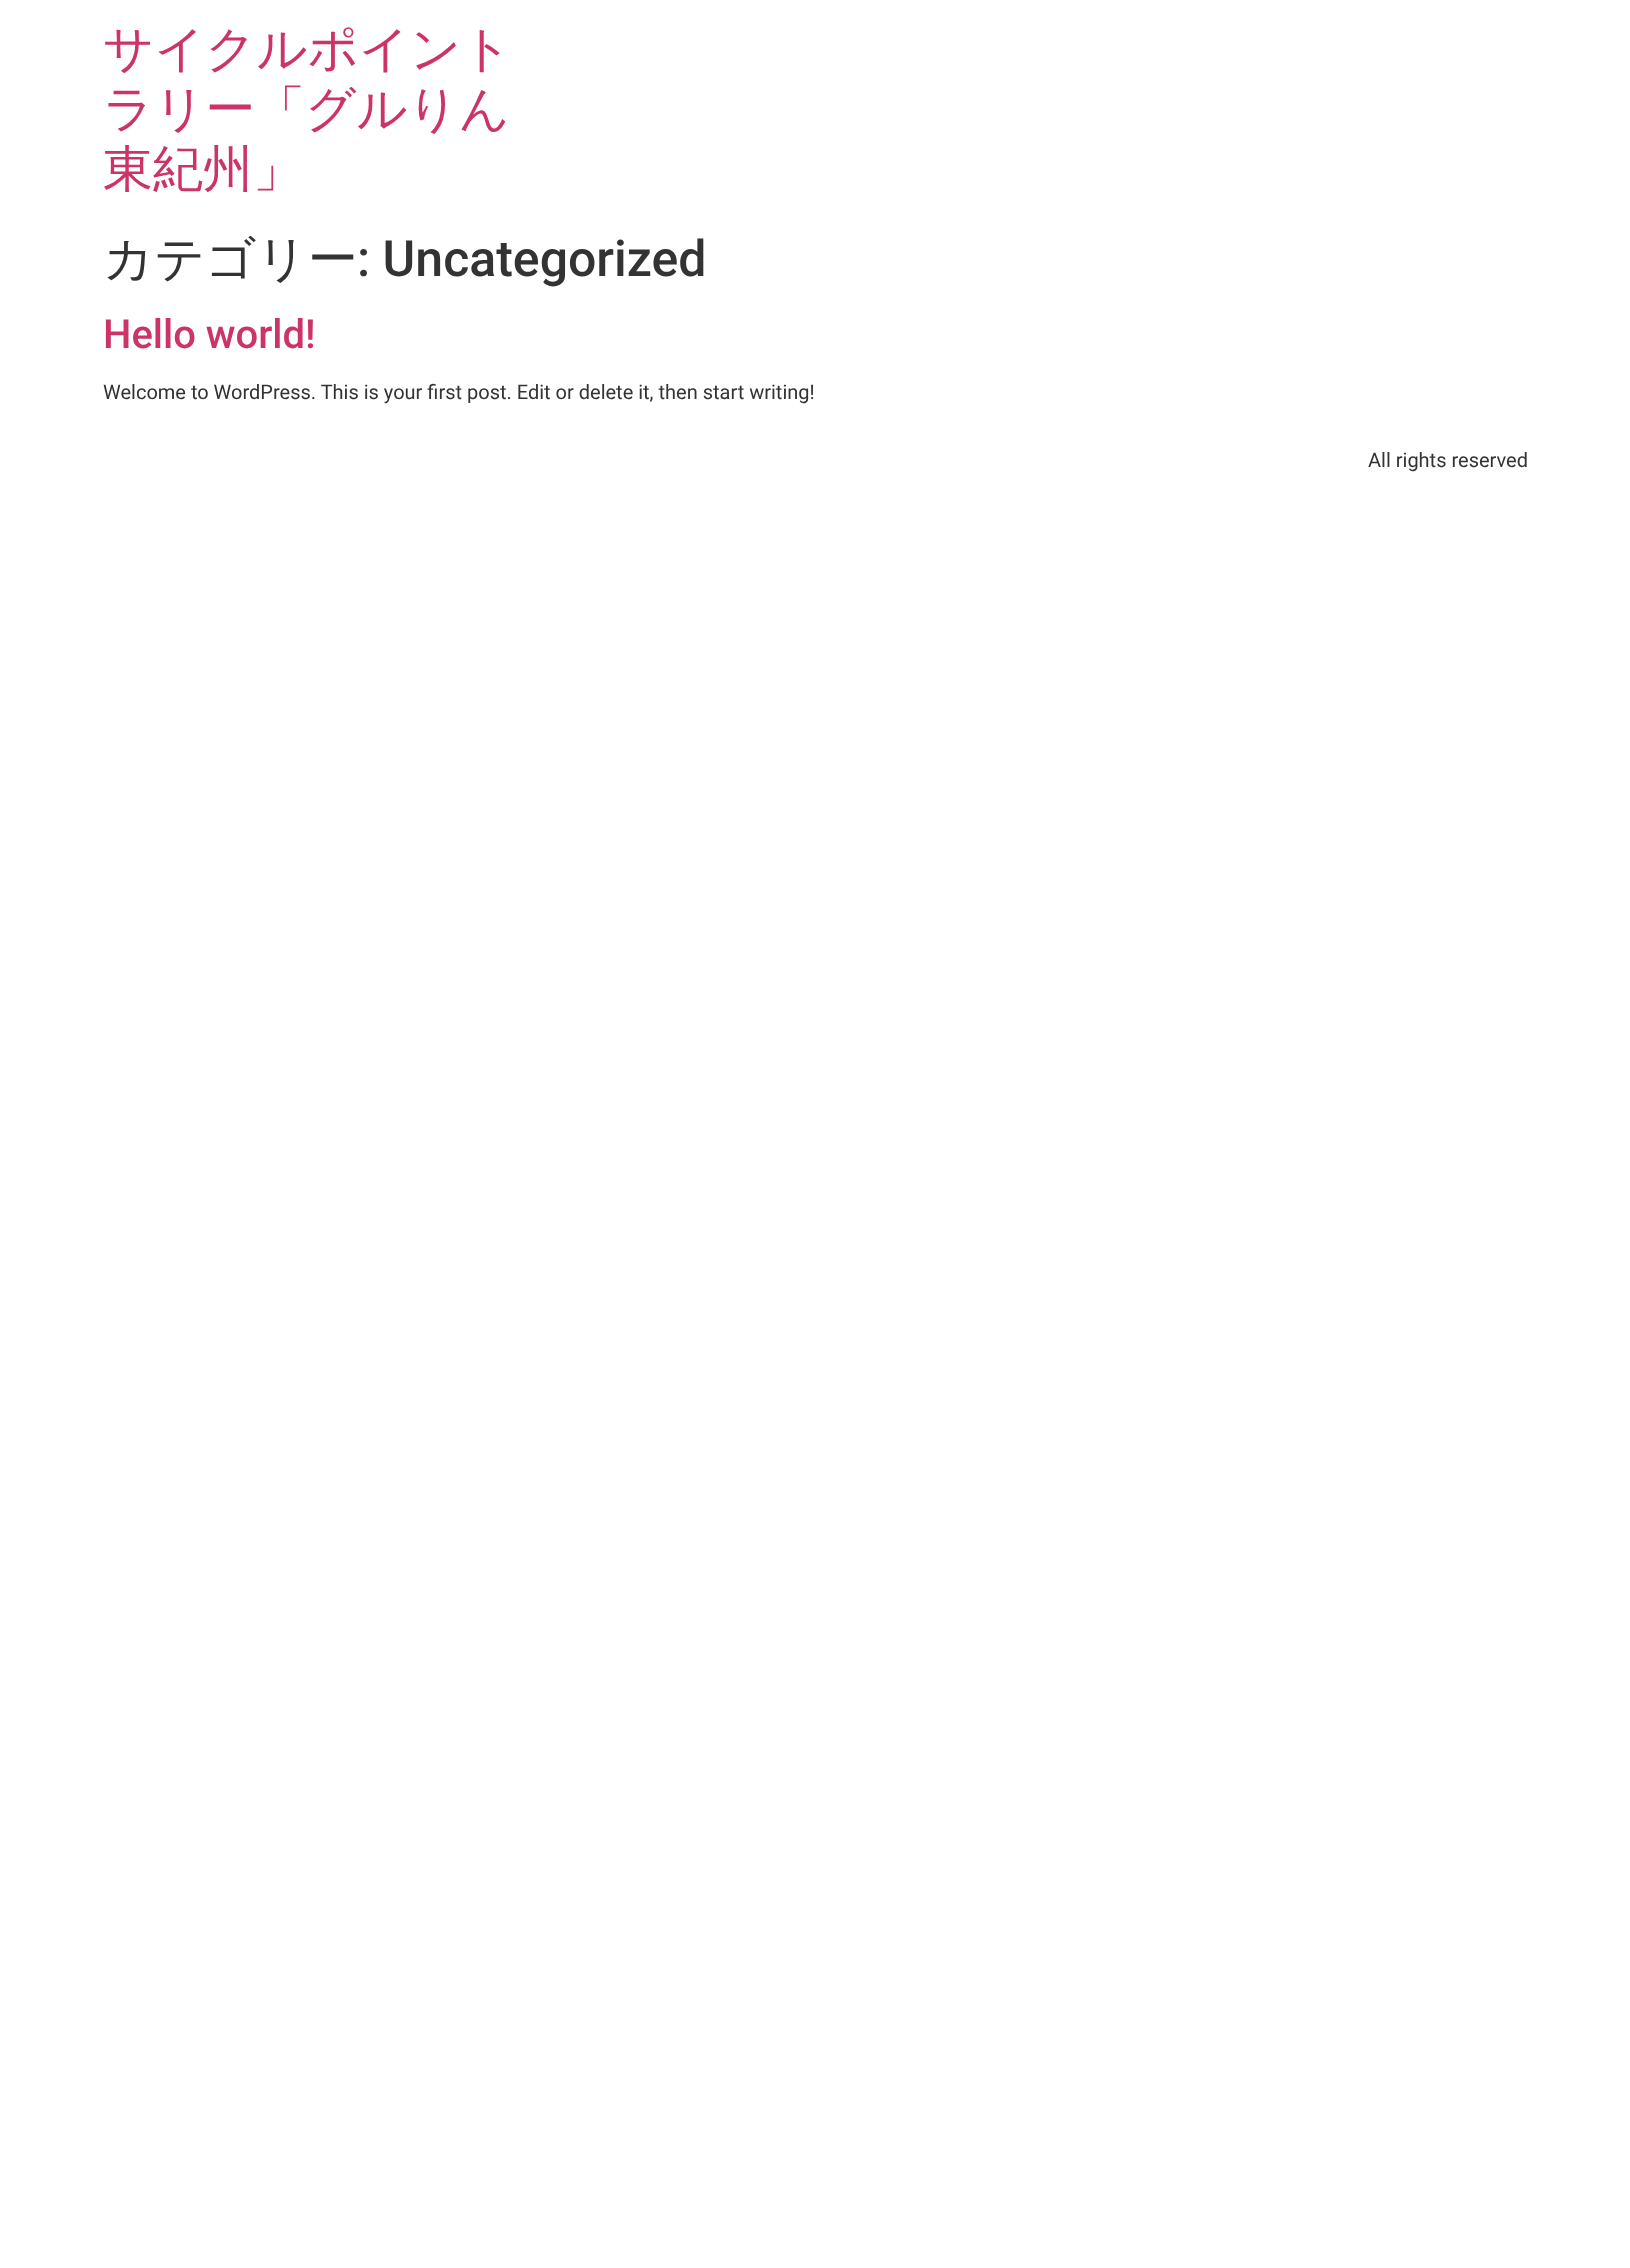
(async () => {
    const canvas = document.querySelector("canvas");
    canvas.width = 1630;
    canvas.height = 2268;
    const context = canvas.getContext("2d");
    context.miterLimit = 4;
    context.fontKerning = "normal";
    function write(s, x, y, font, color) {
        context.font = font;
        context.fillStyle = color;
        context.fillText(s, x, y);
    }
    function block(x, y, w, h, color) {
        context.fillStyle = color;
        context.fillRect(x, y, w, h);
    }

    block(0, 0, 1630, 2268, "rgb(255, 255, 255)");
    write("サイクルポイント", 103, 66, "500 50px WenQuanYi Zen Hei", "rgb(204, 51, 102)");
    write("ラリー「グルりん", 103, 126, "500 50px WenQuanYi Zen Hei", "rgb(204, 51, 102)");
    write("東紀州」", 103, 186, "500 50px WenQuanYi Zen Hei", "rgb(204, 51, 102)");
    write("カテゴリー", 103, 276, "500 50px WenQuanYi Zen Hei", "rgb(51, 51, 51)");
    write(": Uncategorized", 357, 276, "500 50px Roboto", "rgb(51, 51, 51)");
    write("Hello world!", 103, 348, "500 40px Roboto", "rgb(204, 51, 102)");
    write("Welcome to WordPress. This is your first post. Edit or delete it, then start writing!", 103, 399, "20px Roboto", "rgb(51, 51, 51)");
    write("All rights reserved", 1368, 467, "20px Roboto", "rgb(51, 51, 51)");
})();
